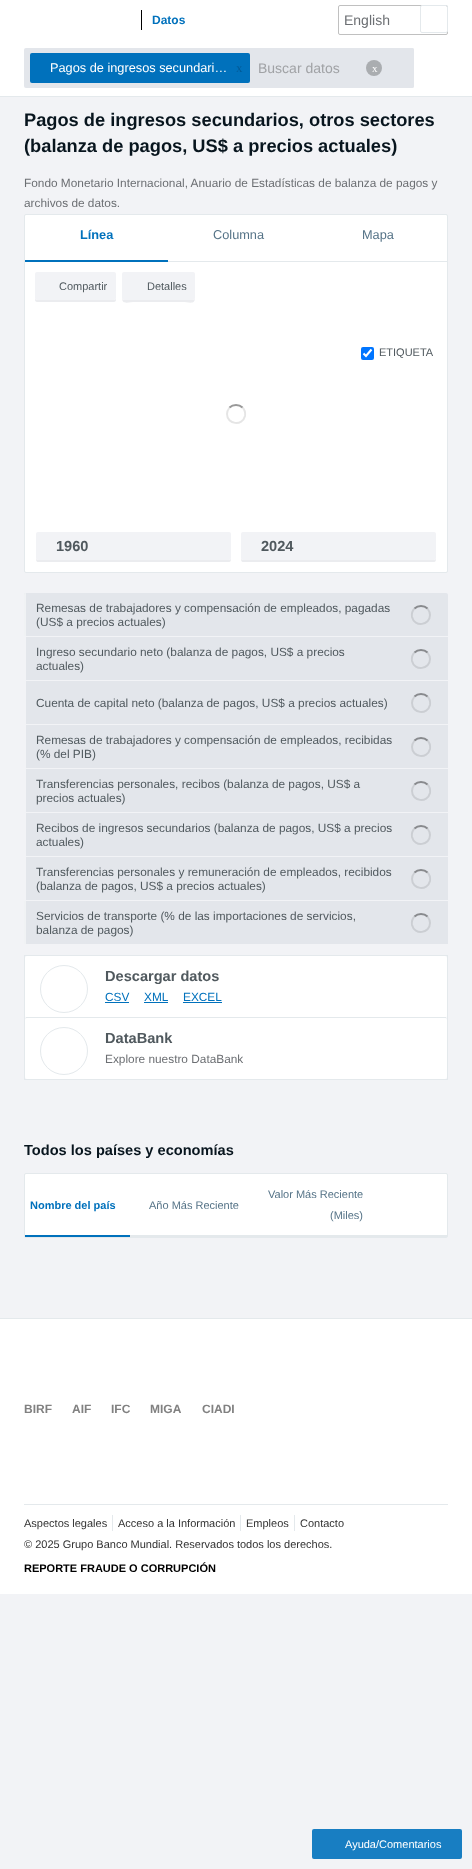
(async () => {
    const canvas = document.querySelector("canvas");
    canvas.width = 472;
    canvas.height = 1869;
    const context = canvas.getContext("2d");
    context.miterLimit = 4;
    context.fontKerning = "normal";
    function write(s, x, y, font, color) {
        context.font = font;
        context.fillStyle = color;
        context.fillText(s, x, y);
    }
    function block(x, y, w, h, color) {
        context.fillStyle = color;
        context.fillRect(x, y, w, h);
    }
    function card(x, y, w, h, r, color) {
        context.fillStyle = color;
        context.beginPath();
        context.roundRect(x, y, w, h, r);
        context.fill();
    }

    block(0, 0, 472, 1869, "rgb(242, 243, 246)");
    block(0, 0, 472, 96, "rgb(255, 255, 255)");
    block(141, 10, 1, 20, "rgb(0, 0, 0)");
    write("Datos", 152, 24, "bold 12px Liberation Sans", "rgb(0, 113, 188)");
    context.beginPath();
    context.roundRect(338.5, 5.5, 109, 29, 1.5);
    context.strokeStyle = "rgb(192, 192, 192)";
    context.stroke();
    write("English", 344, 25, "14px Liberation Sans", "rgb(108, 111, 115)");
    block(0, 96, 472, 1, "rgb(228, 233, 236)");
    context.beginPath();
    context.roundRect(420.5, 5.5, 27, 27, 1.5);
    context.strokeStyle = "rgb(228, 233, 236)";
    context.stroke();
    card(24, 48, 390, 40, 2, "rgb(227, 230, 235)");
    card(30, 53, 220, 30, 2, "rgb(0, 113, 188)");
    write("Pagos de ingresos secundari…", 50, 72, "12.75px Liberation Sans", "rgb(255, 255, 255)");
    write("x", 236, 72, "12.75px Liberation Serif", "rgb(0, 90, 150)");
    write("Buscar datos", 258, 73, "14px Liberation Sans", "rgb(160, 162, 165)");
    context.fillStyle = "rgb(170, 173, 176)";
    context.beginPath();
    context.arc(374, 68, 8, 0, Math.PI * 2);
    context.fill();
    write("x", 372, 72, "11px Liberation Serif", "rgb(255, 255, 255)");
    context.fillStyle = "rgb(227, 230, 235)";
    context.beginPath();
    context.roundRect(384, 48, 30, 40, [0, 2, 2, 0]);
    context.fill();
    write("Pagos de ingresos secundarios, otros sectores", 24, 126, "bold 18.25px Liberation Sans", "rgb(8, 21, 30)");
    write("(balanza de pagos, US$ a precios actuales)", 24, 152, "bold 18.25px Liberation Sans", "rgb(8, 21, 30)");
    write("Fondo Monetario Internacional, Anuario de Estadísticas de balanza de pagos y", 24, 187, "11.85px Liberation Sans", "rgb(108, 111, 115)");
    write("archivos de datos.", 24, 207, "11.85px Liberation Sans", "rgb(108, 111, 115)");
    context.fillStyle = "rgb(255, 255, 255)";
    context.beginPath();
    context.roundRect(24.5, 214.5, 423, 358, 1.5);
    context.fill();
    context.stroke();
    block(168, 261, 279, 1, "rgb(228, 233, 236)");
    block(25, 260, 143, 2, "rgb(0, 113, 188)");
    write("Línea", 80, 239, "bold 12.75px Liberation Sans", "rgb(0, 113, 188)");
    write("Columna", 213, 239, "12.75px Liberation Sans", "rgb(85, 115, 135)");
    write("Mapa", 362, 239, "12.75px Liberation Sans", "rgb(85, 115, 135)");
    context.fillStyle = "rgb(235, 236, 239)";
    context.beginPath();
    context.moveTo(35, 298);
    context.lineTo(35, 300);
    context.bezierCurveTo(35, 301, 36, 302, 37, 302);
    context.lineTo(114, 302);
    context.bezierCurveTo(115, 302, 116, 301, 116, 300);
    context.lineTo(116, 298);
    context.bezierCurveTo(116, 299, 115, 300, 114, 300);
    context.lineTo(36, 300);
    context.closePath();
    context.fill();
    card(35, 272, 81, 28, 2, "rgb(242, 243, 246)");
    write("Compartir", 59, 290, "11px Liberation Sans", "rgb(80, 89, 94)");
    context.fillStyle = "rgb(235, 236, 239)";
    context.beginPath();
    context.moveTo(122, 298);
    context.bezierCurveTo(122, 305, 128, 302, 136, 302);
    context.lineTo(182, 302);
    context.bezierCurveTo(189, 302, 195, 305, 195, 298);
    context.bezierCurveTo(195, 299, 194, 300, 193, 300);
    context.lineTo(124, 300);
    context.bezierCurveTo(123, 300, 122, 299, 122, 298);
    context.closePath();
    context.fill();
    card(122, 272, 73, 28, 2, "rgb(242, 243, 246)");
    write("Detalles", 147, 290, "11px Liberation Sans", "rgb(80, 89, 94)");
    card(361, 347, 13, 13, 2, "rgb(0, 117, 255)");
    context.beginPath();
    context.moveTo(363.5, 353.5);
    context.lineTo(366, 356);
    context.lineTo(371.5, 349.5);
    context.strokeStyle = "rgb(255, 255, 255)";
    context.lineWidth = 2.1;
    context.stroke();
    write("ETIQUETA", 379, 356, "11px Liberation Sans", "rgb(80, 89, 94)");
    context.beginPath();
    context.moveTo(229.5, 407.5);
    context.bezierCurveTo(233, 404, 239, 404, 242.5, 407.5);
    context.strokeStyle = "rgb(153, 153, 153)";
    context.lineWidth = 2;
    context.stroke();
    context.beginPath();
    context.moveTo(242.5, 407.5);
    context.bezierCurveTo(244.5, 409.5, 245.5, 413, 245, 416);
    context.bezierCurveTo(242.5, 426.5, 227, 424.5, 227, 414);
    context.bezierCurveTo(227, 411.5, 228, 409.5, 229.5, 407.5);
    context.strokeStyle = "rgba(0, 0, 0, 0.1)";
    context.stroke();
    context.fillStyle = "rgb(235, 236, 239)";
    context.beginPath();
    context.moveTo(36, 558);
    context.bezierCurveTo(36, 560, 36, 562, 38, 562);
    context.lineTo(229, 562);
    context.bezierCurveTo(231, 562, 231, 560, 231, 558);
    context.bezierCurveTo(231, 559, 230, 560, 229, 560);
    context.lineTo(38, 560);
    context.bezierCurveTo(37, 560, 36, 559, 36, 558);
    context.closePath();
    context.fill();
    card(36, 532, 195, 28, 2, "rgb(242, 243, 246)");
    write("1960", 56, 551, "bold 14.6px Liberation Sans", "rgb(80, 89, 94)");
    context.fillStyle = "rgb(235, 236, 239)";
    context.beginPath();
    context.moveTo(241, 558);
    context.bezierCurveTo(241, 560, 241, 562, 243, 562);
    context.lineTo(434, 562);
    context.bezierCurveTo(436, 562, 436, 560, 436, 558);
    context.bezierCurveTo(436, 559, 435, 560, 434, 560);
    context.lineTo(243, 560);
    context.bezierCurveTo(242, 560, 241, 559, 241, 558);
    context.closePath();
    context.fill();
    card(241, 532, 195, 28, 2, "rgb(242, 243, 246)");
    write("2024", 261, 551, "bold 14.6px Liberation Sans", "rgb(80, 89, 94)");
    context.fillStyle = "rgb(227, 230, 235)";
    context.beginPath();
    context.roundRect(24, 593, 424, 43, [2, 2, 0, 0]);
    context.fill();
    context.fillStyle = "rgb(240, 242, 244)";
    context.beginPath();
    context.roundRect(24, 593, 2, 43, [2, 0, 0, 0]);
    context.fill();
    write("Remesas de trabajadores y compensación de empleados, pagadas", 36, 612, "11.85px Liberation Sans", "rgb(80, 89, 94)");
    write("(US$ a precios actuales)", 36, 626, "11.85px Liberation Sans", "rgb(80, 89, 94)");
    context.beginPath();
    context.moveTo(414.5, 608.5);
    context.bezierCurveTo(418, 605, 424, 605, 427.5, 608.5);
    context.strokeStyle = "rgb(136, 138, 141)";
    context.stroke();
    context.beginPath();
    context.moveTo(427.5, 608.5);
    context.bezierCurveTo(429, 610.5, 430, 612.5, 430, 615);
    context.bezierCurveTo(430, 625.5, 414.5, 627.5, 412, 617);
    context.bezierCurveTo(411.5, 614, 412.5, 610.5, 414.5, 608.5);
    context.strokeStyle = "rgba(0, 0, 0, 0.1)";
    context.stroke();
    block(26, 637, 422, 43, "rgb(227, 230, 235)");
    write("Ingreso secundario neto (balanza de pagos, US$ a precios", 36, 656, "11.85px Liberation Sans", "rgb(80, 89, 94)");
    write("actuales)", 36, 670, "11.85px Liberation Sans", "rgb(80, 89, 94)");
    context.beginPath();
    context.moveTo(414.5, 652.5);
    context.bezierCurveTo(418, 649, 424, 649, 427.5, 652.5);
    context.strokeStyle = "rgb(136, 138, 141)";
    context.stroke();
    context.beginPath();
    context.moveTo(427.5, 652.5);
    context.bezierCurveTo(429, 654.5, 430, 656.5, 430, 659);
    context.bezierCurveTo(430, 669.5, 414.5, 671.5, 412, 661);
    context.bezierCurveTo(411.5, 658, 412.5, 654.5, 414.5, 652.5);
    context.strokeStyle = "rgba(0, 0, 0, 0.1)";
    context.stroke();
    block(26, 681, 422, 43, "rgb(227, 230, 235)");
    write("Cuenta de capital neto (balanza de pagos, US$ a precios actuales)", 36, 707, "11.85px Liberation Sans", "rgb(80, 89, 94)");
    context.beginPath();
    context.moveTo(414.5, 696.5);
    context.bezierCurveTo(418, 693, 424, 693, 427.5, 696.5);
    context.strokeStyle = "rgb(136, 138, 141)";
    context.stroke();
    context.beginPath();
    context.moveTo(427.5, 696.5);
    context.bezierCurveTo(429.5, 698.5, 430.5, 702, 430, 705);
    context.bezierCurveTo(427.5, 715.5, 412, 713.5, 412, 703);
    context.bezierCurveTo(412, 700.5, 413, 698.5, 414.5, 696.5);
    context.strokeStyle = "rgba(0, 0, 0, 0.1)";
    context.stroke();
    block(26, 725, 422, 43, "rgb(227, 230, 235)");
    write("Remesas de trabajadores y compensación de empleados, recibidas", 36, 744, "11.85px Liberation Sans", "rgb(80, 89, 94)");
    write("(% del PIB)", 36, 758, "11.85px Liberation Sans", "rgb(80, 89, 94)");
    context.beginPath();
    context.moveTo(414.5, 740.5);
    context.bezierCurveTo(418, 737, 424, 737, 427.5, 740.5);
    context.strokeStyle = "rgb(136, 138, 141)";
    context.stroke();
    context.beginPath();
    context.moveTo(427.5, 740.5);
    context.bezierCurveTo(429.5, 742.5, 430.5, 746, 430, 749);
    context.bezierCurveTo(427.5, 759.5, 412, 757.5, 412, 747);
    context.bezierCurveTo(412, 744.5, 413, 742.5, 414.5, 740.5);
    context.strokeStyle = "rgba(0, 0, 0, 0.1)";
    context.stroke();
    block(26, 769, 422, 43, "rgb(227, 230, 235)");
    write("Transferencias personales, recibos (balanza de pagos, US$ a", 36, 788, "11.85px Liberation Sans", "rgb(80, 89, 94)");
    write("precios actuales)", 36, 802, "11.85px Liberation Sans", "rgb(80, 89, 94)");
    context.beginPath();
    context.moveTo(414.5, 784.5);
    context.bezierCurveTo(418, 781, 424, 781, 427.5, 784.5);
    context.strokeStyle = "rgb(136, 138, 141)";
    context.stroke();
    context.beginPath();
    context.moveTo(427.5, 784.5);
    context.bezierCurveTo(429.5, 786.5, 430.5, 790, 430, 793);
    context.bezierCurveTo(427.5, 803.5, 412, 801.5, 412, 791);
    context.bezierCurveTo(412, 788.5, 413, 786.5, 414.5, 784.5);
    context.strokeStyle = "rgba(0, 0, 0, 0.1)";
    context.stroke();
    block(26, 813, 422, 43, "rgb(227, 230, 235)");
    write("Recibos de ingresos secundarios (balanza de pagos, US$ a precios", 36, 832, "11.85px Liberation Sans", "rgb(80, 89, 94)");
    write("actuales)", 36, 846, "11.85px Liberation Sans", "rgb(80, 89, 94)");
    context.beginPath();
    context.moveTo(414.5, 828.5);
    context.bezierCurveTo(418, 825, 424, 825, 427.5, 828.5);
    context.strokeStyle = "rgb(136, 138, 141)";
    context.stroke();
    context.beginPath();
    context.moveTo(427.5, 828.5);
    context.bezierCurveTo(429, 830.5, 430, 832.5, 430, 835);
    context.bezierCurveTo(430, 845.5, 414.5, 847.5, 412, 837);
    context.bezierCurveTo(411.5, 834, 412.5, 830.5, 414.5, 828.5);
    context.strokeStyle = "rgba(0, 0, 0, 0.1)";
    context.stroke();
    block(26, 857, 422, 43, "rgb(227, 230, 235)");
    write("Transferencias personales y remuneración de empleados, recibidos", 36, 876, "11.85px Liberation Sans", "rgb(80, 89, 94)");
    write("(balanza de pagos, US$ a precios actuales)", 36, 890, "11.85px Liberation Sans", "rgb(80, 89, 94)");
    context.beginPath();
    context.moveTo(414.5, 872.5);
    context.bezierCurveTo(418, 869, 424, 869, 427.5, 872.5);
    context.strokeStyle = "rgb(136, 138, 141)";
    context.stroke();
    context.beginPath();
    context.moveTo(427.5, 872.5);
    context.bezierCurveTo(429.5, 874.5, 430.5, 878, 430, 881);
    context.bezierCurveTo(427.5, 891.5, 412, 889.5, 412, 879);
    context.bezierCurveTo(412, 876.5, 413, 874.5, 414.5, 872.5);
    context.strokeStyle = "rgba(0, 0, 0, 0.1)";
    context.stroke();
    block(24, 901, 424, 43, "rgb(227, 230, 235)");
    block(24, 901, 2, 43, "rgb(240, 242, 244)");
    write("Servicios de transporte (% de las importaciones de servicios,", 36, 920, "11.85px Liberation Sans", "rgb(80, 89, 94)");
    write("balanza de pagos)", 36, 934, "11.85px Liberation Sans", "rgb(80, 89, 94)");
    context.beginPath();
    context.moveTo(414.5, 916.5);
    context.bezierCurveTo(418, 913, 424, 913, 427.5, 916.5);
    context.strokeStyle = "rgb(136, 138, 141)";
    context.stroke();
    context.beginPath();
    context.moveTo(427.5, 916.5);
    context.bezierCurveTo(429, 918.5, 430, 920.5, 430, 923);
    context.bezierCurveTo(430, 933.5, 414.5, 935.5, 412, 925);
    context.bezierCurveTo(411.5, 922, 412.5, 918.5, 414.5, 916.5);
    context.strokeStyle = "rgba(0, 0, 0, 0.1)";
    context.stroke();
    context.strokeStyle = "rgb(228, 233, 236)";
    context.lineWidth = 1;
    context.strokeRect(24.5, 955.5, 423, 124);
    card(25, 956, 422, 62, 2, "rgb(255, 255, 255)");
    block(26, 1017, 420, 1, "rgb(228, 233, 236)");
    context.beginPath();
    context.arc(64, 989, 23.5, 0, Math.PI * 2);
    context.stroke();
    write("Descargar datos", 105, 981, "bold 14.6px Liberation Sans", "rgb(80, 89, 94)");
    write("CSV", 105, 1001, "11.85px Liberation Sans", "rgb(0, 113, 188)");
    block(105, 1002, 24, 1, "rgb(0, 113, 188)");
    write("XML", 144, 1001, "11.85px Liberation Sans", "rgb(0, 113, 188)");
    block(144, 1002, 24, 1, "rgb(0, 113, 188)");
    write("EXCEL", 183, 1001, "11.85px Liberation Sans", "rgb(0, 113, 188)");
    block(183, 1002, 39, 1, "rgb(0, 113, 188)");
    card(25, 1018, 422, 61, 2, "rgb(255, 255, 255)");
    context.beginPath();
    context.arc(64, 1051, 23.5, 0, Math.PI * 2);
    context.stroke();
    write("DataBank", 105, 1043, "bold 14.6px Liberation Sans", "rgb(80, 89, 94)");
    write("Explore nuestro DataBank", 105, 1063, "11.85px Liberation Sans", "rgb(108, 111, 115)");
    write("Todos los países y economías", 24, 1155, "bold 14.6px Liberation Sans", "rgb(8, 21, 30)");
    context.fillStyle = "rgb(255, 255, 255)";
    context.beginPath();
    context.roundRect(24.5, 1173.5, 423, 64, 1.5);
    context.fill();
    context.stroke();
    block(25, 1235, 105, 2, "rgb(0, 113, 188)");
    write("Nombre del país", 30, 1209, "bold 11px Liberation Sans", "rgb(0, 113, 188)");
    block(130, 1235, 317, 2, "rgb(228, 233, 236)");
    write("Año Más Reciente", 149, 1209, "11px Liberation Sans", "rgb(85, 115, 135)");
    write("Valor Más Reciente", 268, 1198, "11px Liberation Sans", "rgb(85, 115, 135)");
    write("(Miles)", 330, 1219, "11px Liberation Sans", "rgb(85, 115, 135)");
    block(0, 1319, 472, 275, "rgb(255, 255, 255)");
    block(0, 1318, 472, 1, "rgb(228, 233, 236)");
    block(24, 1504, 424, 1, "rgb(228, 233, 236)");
    write("BIRF", 24, 1413, "bold 12px Liberation Sans", "rgb(129, 129, 129)");
    write("AIF", 72, 1413, "bold 12px Liberation Sans", "rgb(129, 129, 129)");
    write("IFC", 111, 1413, "bold 12px Liberation Sans", "rgb(129, 129, 129)");
    write("MIGA", 150, 1413, "bold 12px Liberation Sans", "rgb(129, 129, 129)");
    write("CIADI", 202, 1413, "bold 12px Liberation Sans", "rgb(129, 129, 129)");
    block(112, 1515, 1, 16, "rgb(228, 233, 236)");
    write("Aspectos legales", 24, 1527, "11px Liberation Sans", "rgb(51, 51, 51)");
    block(240, 1515, 1, 16, "rgb(228, 233, 236)");
    write("Acceso a la Información", 118, 1527, "11px Liberation Sans", "rgb(51, 51, 51)");
    block(294, 1515, 1, 16, "rgb(228, 233, 236)");
    write("Empleos", 246, 1527, "11px Liberation Sans", "rgb(51, 51, 51)");
    write("Contacto", 300, 1527, "11px Liberation Sans", "rgb(51, 51, 51)");
    write("© 2025 Grupo Banco Mundial. Reservados todos los derechos.", 24, 1548, "11px Liberation Sans", "rgb(51, 51, 51)");
    write("REPORTE FRAUDE O CORRUPCIÓN", 24, 1572, "bold 11px Liberation Sans", "rgb(0, 0, 0)");
    card(312, 1829, 150, 30, 2, "rgb(24, 126, 194)");
    write("Ayuda/Comentarios", 345, 1848, "11px Liberation Sans", "rgb(255, 255, 255)");
})();
